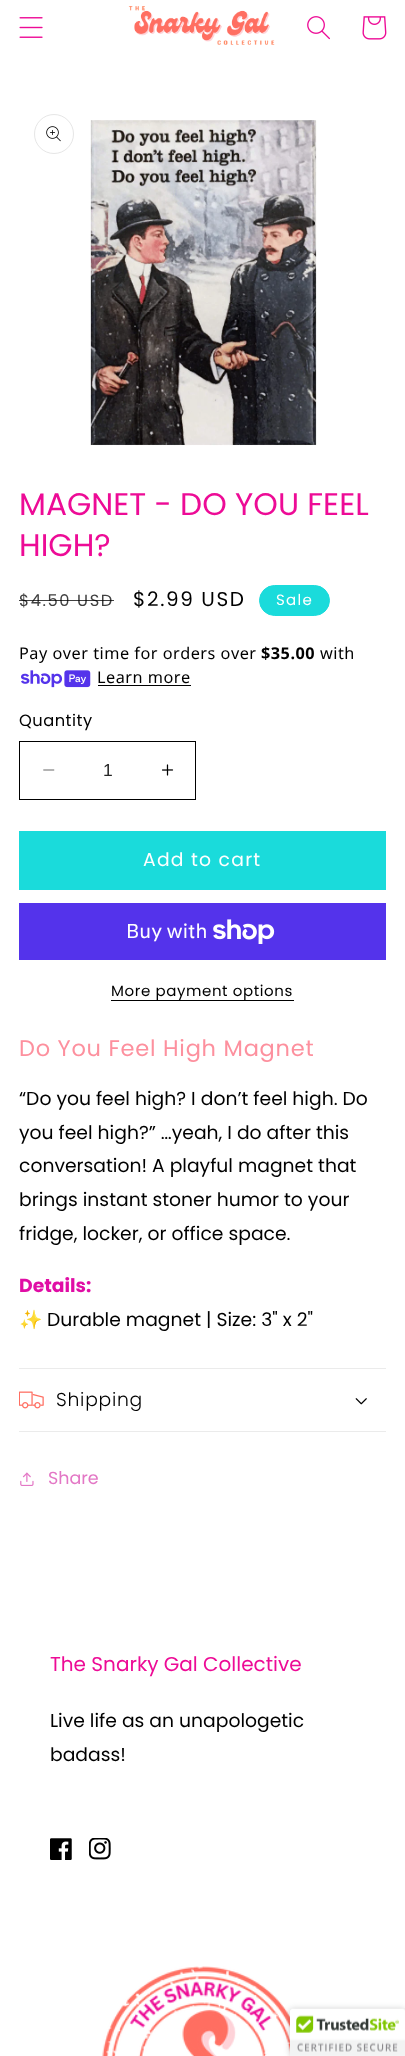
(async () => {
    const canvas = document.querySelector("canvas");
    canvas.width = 405;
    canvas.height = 2056;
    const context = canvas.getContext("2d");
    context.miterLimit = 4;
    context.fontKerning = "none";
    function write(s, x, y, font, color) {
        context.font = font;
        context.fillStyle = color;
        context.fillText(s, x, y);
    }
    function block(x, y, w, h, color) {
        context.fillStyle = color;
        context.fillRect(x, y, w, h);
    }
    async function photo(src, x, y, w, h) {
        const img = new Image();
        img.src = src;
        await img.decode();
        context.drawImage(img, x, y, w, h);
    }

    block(0, 0, 405, 2056, "rgb(255, 255, 255)");
    await photo("media/1.png", 19, 17, 24, 21);
    await photo("media/2.png", 128, 6, 147, 39);
    await photo("media/3.png", 307, 16, 23, 24);
    await photo("media/4.png", 362, 16, 25, 24);
    context.beginPath();
    context.arc(54, 134, 19.5, 0, Math.PI * 2);
    context.strokeStyle = "rgb(230, 230, 230)";
    context.stroke();
    await photo("media/5.png", 46, 126, 15, 16);
    await photo("media/6.png", 90, 120, 227, 326);
    write("MAGNET - DO YOU FEEL", 19, 515, "31.25px Poppins", "rgb(237, 11, 150)");
    write("HIGH?", 19, 556, "31.25px Poppins", "rgb(237, 11, 150)");
    context.letterSpacing = "1.6px";
    write("$4.50 USD", 19, 606, "16.25px Poppins", "rgb(64, 64, 64)");
    block(19, 600, 95, 1, "rgba(0, 0, 0, 0.75)");
    write("$2.99 USD", 133, 606, "20px Poppins", "rgb(0, 0, 0)");
    context.fillStyle = "rgb(26, 219, 219)";
    context.beginPath();
    context.roundRect(259.5, 585.5, 70, 30, 15);
    context.fill();
    context.strokeStyle = "rgb(26, 219, 219)";
    context.stroke();
    context.letterSpacing = "1.25px";
    write("Sale", 276, 605, "15px Poppins", "rgb(255, 255, 255)");
    context.letterSpacing = "0.5px";
    write("Pay over time for orders over", 19, 659, "16.25px Noto Sans", "rgb(0, 0, 0)");
    write("$35.00", 261, 659, "bold 16.25px Noto Sans", "rgb(0, 0, 0)");
    write("with", 320, 659, "16.25px Noto Sans", "rgb(0, 0, 0)");
    await photo("media/7.png", 21, 670, 70, 18);
    write("Learn more", 97, 683, "16.25px Noto Sans", "rgb(0, 0, 0)");
    block(98, 685, 93, 1, "rgb(0, 0, 0)");
    write("Quantity", 19, 726, "16.25px Poppins", "rgb(0, 0, 0)");
    await photo("media/8.png", 43, 769, 12, 2);
    await photo("media/9.png", 162, 764, 12, 12);
    context.strokeStyle = "rgb(0, 0, 0)";
    context.strokeRect(19.5, 741.5, 176, 58);
    context.letterSpacing = "0px";
    write("1", 103, 776, "17.5px Liberation Sans", "rgb(38, 38, 38)");
    block(19, 831, 367, 59, "rgb(26, 219, 219)");
    context.letterSpacing = "1.25px";
    write("Add to cart", 143, 866, "18.75px Poppins", "rgb(255, 255, 255)");
    block(19, 903, 367, 57, "rgb(84, 51, 235)");
    context.letterSpacing = "0px";
    write("Buy with", 126, 938, "20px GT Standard", "rgb(255, 255, 255)");
    await photo("media/10.png", 213, 919, 62, 25);
    context.letterSpacing = "0.6px";
    write("More payment options", 111, 996, "15px Poppins", "rgb(0, 0, 0)");
    block(111, 1000, 183, 1, "rgb(0, 0, 0)");
    context.letterSpacing = "0.75px";
    write("Do You Feel High Magnet", 19, 1056, "22.5px Poppins", "rgb(253, 144, 158)");
    context.letterSpacing = "0px";
    write("“Do you feel high? I don’t feel high. Do", 19, 1105, "18.75px Poppins", "rgb(0, 0, 0)");
    write("you feel high?” …yeah, I do after this", 19, 1139, "18.75px Poppins", "rgb(0, 0, 0)");
    write("conversation! A playful magnet that", 19, 1172, "18.75px Poppins", "rgb(0, 0, 0)");
    write("brings instant stoner humor to your", 19, 1206, "18.75px Poppins", "rgb(0, 0, 0)");
    write("fridge, locker, or office space.", 19, 1240, "18.75px Poppins", "rgb(0, 0, 0)");
    write("Details:", 19, 1292, "bold 18.75px Poppins", "rgb(224, 13, 165)");
    write("✨", 19, 1326, "18.75px Noto Color Emoji", "rgb(0, 0, 0)");
    write("Durable magnet | Size: 3\" x 2\"", 47, 1326, "18.75px Poppins", "rgb(0, 0, 0)");
    block(19, 1368, 367, 1, "rgb(235, 235, 235)");
    block(19, 1431, 367, 1, "rgb(235, 235, 235)");
    await photo("media/11.png", 19, 1391, 25, 18);
    context.letterSpacing = "0.75px";
    write("Shipping", 56, 1406, "300 18.75px Poppins", "rgb(0, 0, 0)");
    await photo("media/12.png", 355, 1398, 12, 7);
    await photo("media/13.png", 20, 1472, 14, 14);
    context.letterSpacing = "0px";
    write("Share", 48, 1484, "17.5px Poppins", "rgb(227, 119, 197)");
    write("The Snarky Gal Collective", 50, 1671, "20px Poppins", "rgb(237, 11, 150)");
    write("Live life as an unapologetic", 50, 1727, "18.75px Poppins", "rgb(0, 0, 0)");
    write("badass!", 50, 1761, "18.75px Poppins", "rgb(0, 0, 0)");
    await photo("media/14.png", 50, 1838, 22, 22);
    await photo("media/15.png", 89, 1838, 22, 22);
    await photo("media/16.png", 102, 1966, 188, 90);
    context.fillStyle = "rgba(0, 0, 0, 0.2)";
    context.filter = "blur(3px)";
    context.beginPath();
    context.roundRect(290, 2009, 115, 47, 2.5);
    context.fill();
    context.filter = "none";
    context.fillStyle = "rgb(255, 255, 255)";
    context.beginPath();
    context.roundRect(290, 2009, 115, 47, [2.5, 0, 0, 0]);
    context.fill();
    await photo("media/17.png", 290, 2008, 115, 48);
})();
